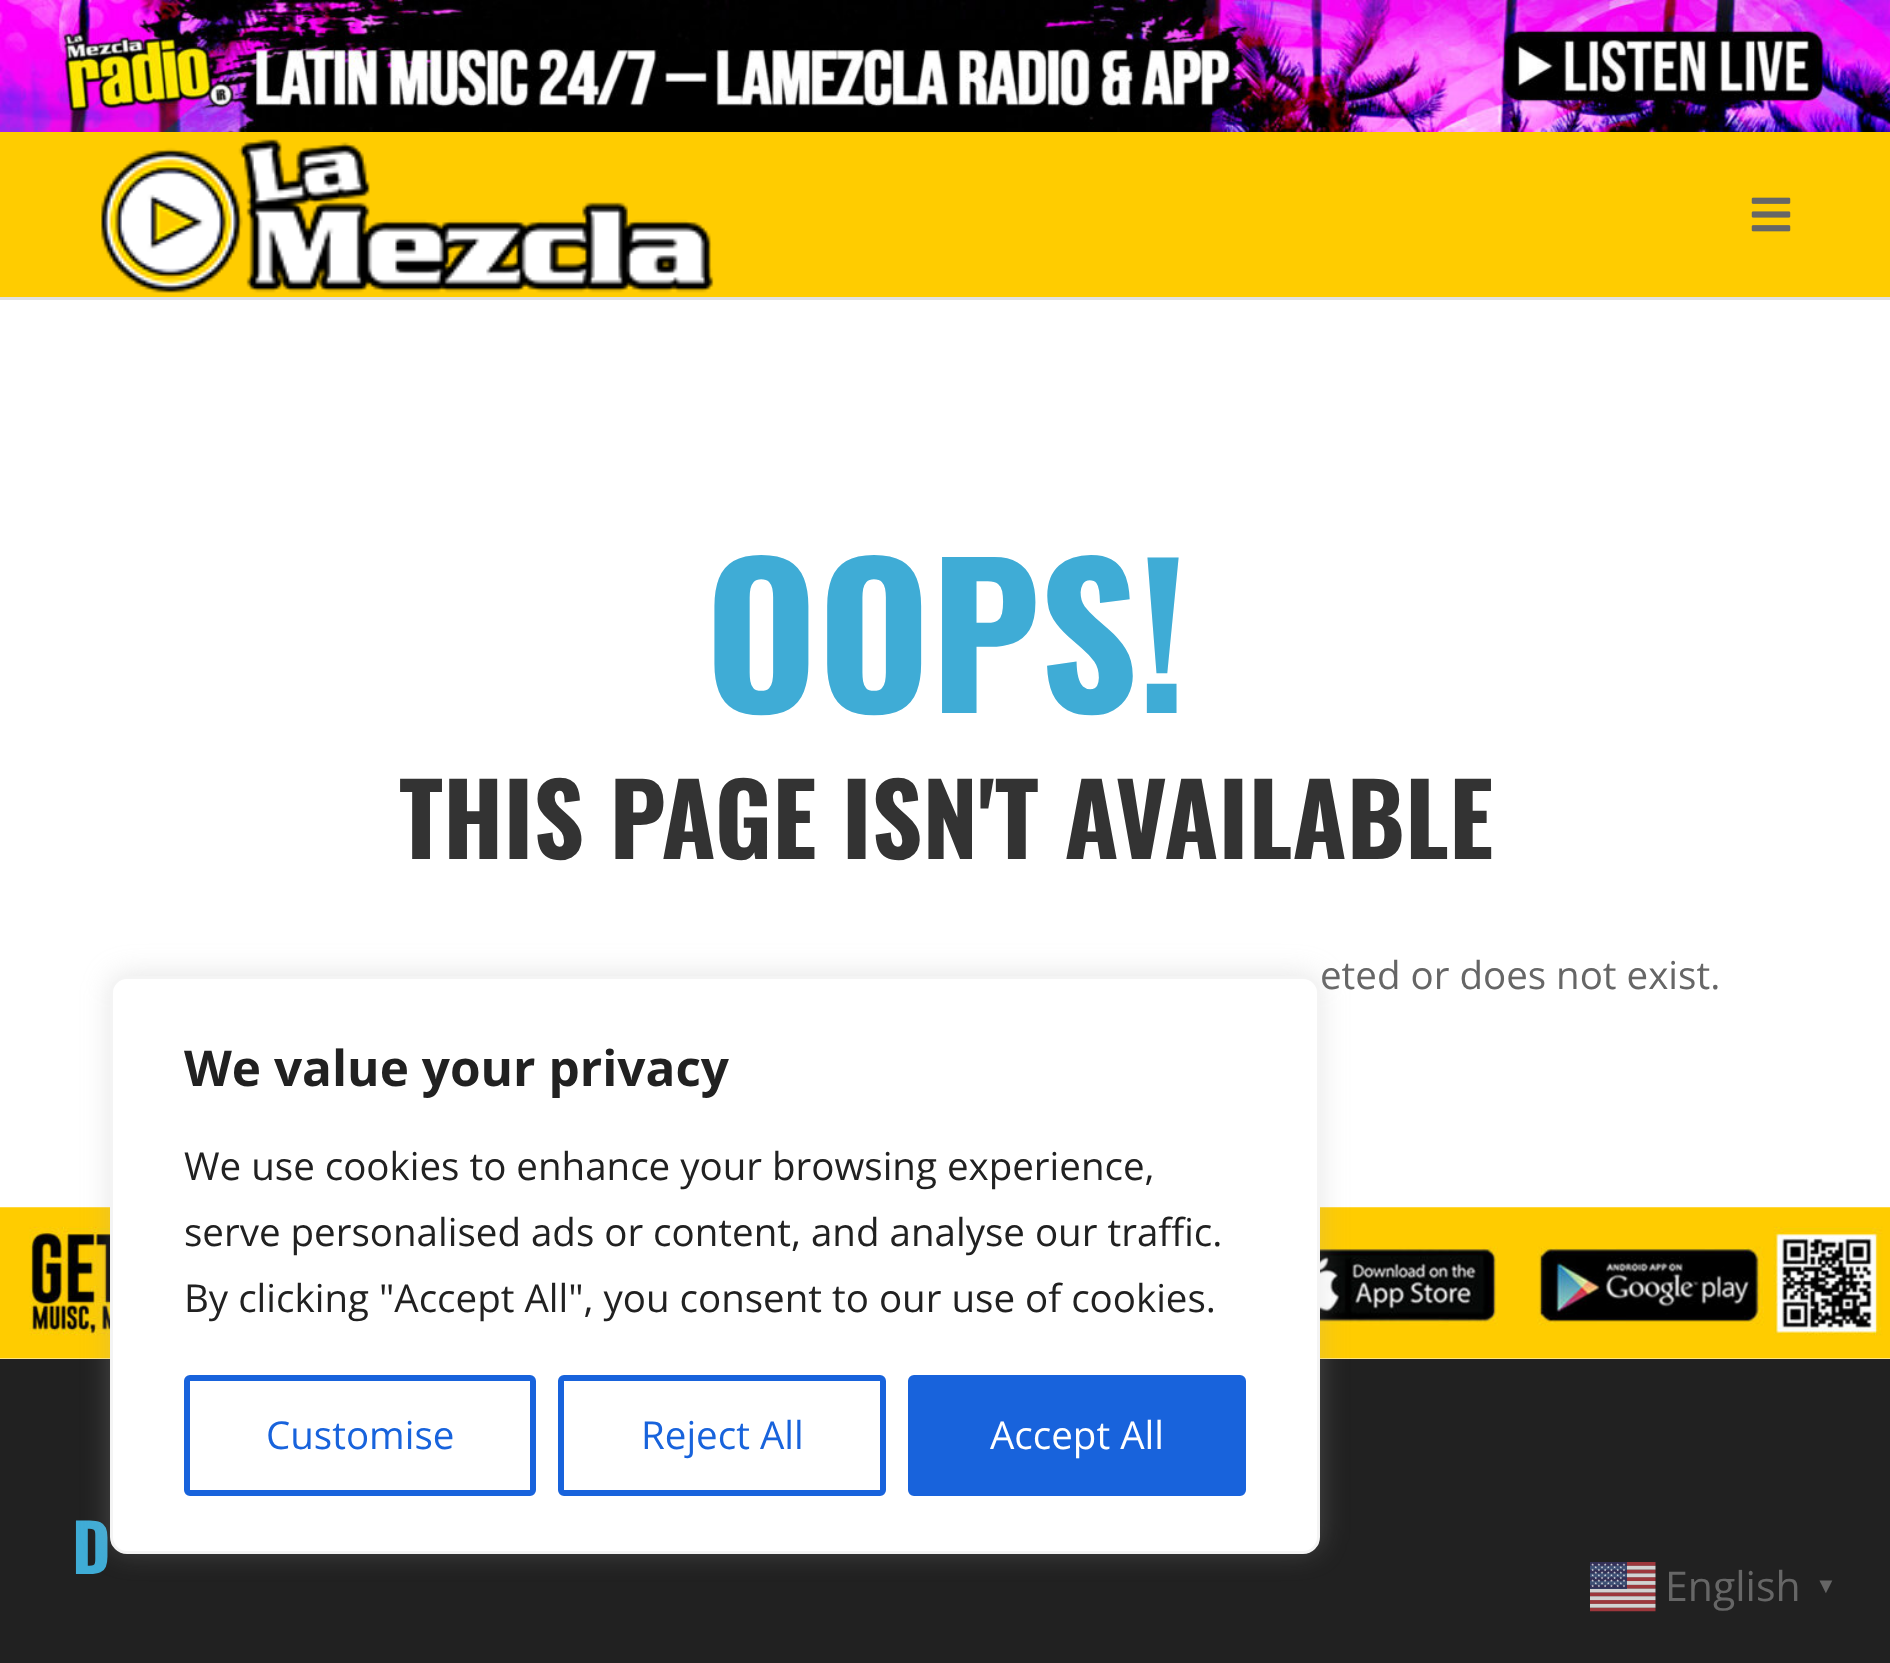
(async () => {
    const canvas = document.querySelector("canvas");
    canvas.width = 1890;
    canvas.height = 1663;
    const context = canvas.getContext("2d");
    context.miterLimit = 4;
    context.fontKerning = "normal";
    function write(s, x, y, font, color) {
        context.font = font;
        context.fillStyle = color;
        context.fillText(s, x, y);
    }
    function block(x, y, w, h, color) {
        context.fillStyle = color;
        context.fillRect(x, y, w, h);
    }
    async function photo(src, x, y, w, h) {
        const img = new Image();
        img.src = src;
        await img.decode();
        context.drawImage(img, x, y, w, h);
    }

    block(0, 0, 1890, 1663, "rgb(255, 255, 255)");
    await photo("media/1.png", 0, 0, 1890, 132);
    block(0, 297, 1890, 3, "rgb(225, 225, 225)");
    block(0, 132, 1890, 165, "rgb(255, 204, 0)");
    await photo("media/2.png", 101, 139, 613, 154);
    await photo("media/3.png", 1751, 197, 40, 35);
    write("OOPS!", 705, 713, "bold 192.5px Oswald", "rgb(63, 172, 214)");
    write("THIS PAGE ISN'T AVAILABLE", 399, 859, "bold 99px Oswald", "rgb(51, 51, 51)");
    write("eted or does not exist.", 1320, 989, "38.5px Open Sans", "rgb(102, 102, 102)");
    await photo("media/4.png", 0, 1207, 1890, 152);
    block(0, 1359, 1890, 304, "rgb(33, 33, 33)");
    write("D", 72, 1574, "bold 66px Oswald", "rgb(63, 172, 214)");
    context.fillStyle = "rgba(172, 171, 171, 0.3)";
    context.filter = "blur(14px)";
    context.beginPath();
    context.roundRect(110, 974, 1210, 577, 17);
    context.fill();
    context.filter = "none";
    context.fillStyle = "rgb(255, 255, 255)";
    context.beginPath();
    context.roundRect(111.5, 977.5, 1207, 575, 15.5);
    context.fill();
    context.strokeStyle = "rgb(244, 244, 244)";
    context.lineWidth = 3;
    context.stroke();
    write("We value your privacy", 184, 1086, "bold 49.5px Open Sans", "rgb(33, 33, 33)");
    write("We use cookies to enhance your browsing experience,", 184, 1180, "38.5px Open Sans", "rgb(33, 33, 33)");
    write("serve personalised ads or content, and analyse our traffic.", 184, 1246, "38.5px Open Sans", "rgb(33, 33, 33)");
    write("By clicking \"Accept All\", you consent to our use of cookies.", 184, 1312, "38.5px Open Sans", "rgb(33, 33, 33)");
    context.beginPath();
    context.roundRect(187, 1378, 346, 115, 3);
    context.strokeStyle = "rgb(24, 99, 220)";
    context.lineWidth = 6;
    context.stroke();
    write("Customise", 266, 1449, "38.5px Open Sans", "rgb(24, 99, 220)");
    context.beginPath();
    context.roundRect(561, 1378, 322, 115, 3);
    context.stroke();
    write("Reject All", 641, 1449, "38.5px Open Sans", "rgb(24, 99, 220)");
    context.beginPath();
    context.roundRect(911, 1378, 332, 115, 3);
    context.fill();
    context.stroke();
    write("Accept All", 990, 1449, "38.5px Open Sans", "rgb(255, 255, 255)");
    await photo("media/5.png", 1590, 1562, 66, 50);
    write("English", 1665, 1601, "41px Open Sans", "rgb(102, 102, 102)");
    write("▼", 1815, 1593, "bold 22px Liberation Serif", "rgb(102, 102, 102)");
})();
